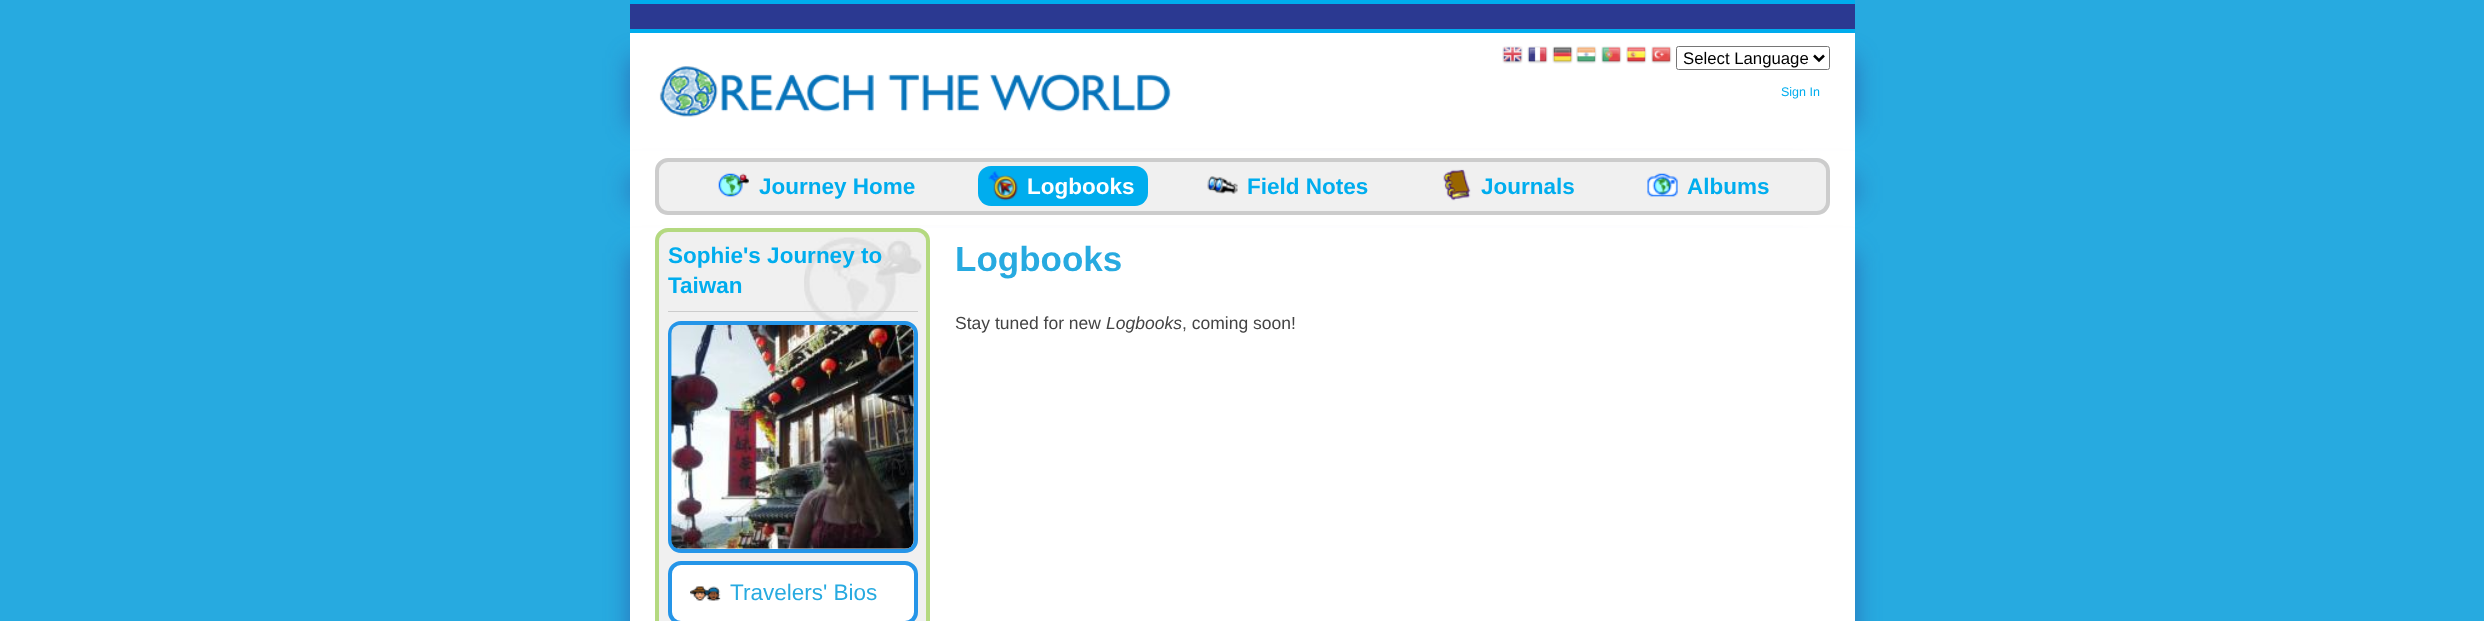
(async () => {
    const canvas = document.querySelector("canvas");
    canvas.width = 2484;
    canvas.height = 621;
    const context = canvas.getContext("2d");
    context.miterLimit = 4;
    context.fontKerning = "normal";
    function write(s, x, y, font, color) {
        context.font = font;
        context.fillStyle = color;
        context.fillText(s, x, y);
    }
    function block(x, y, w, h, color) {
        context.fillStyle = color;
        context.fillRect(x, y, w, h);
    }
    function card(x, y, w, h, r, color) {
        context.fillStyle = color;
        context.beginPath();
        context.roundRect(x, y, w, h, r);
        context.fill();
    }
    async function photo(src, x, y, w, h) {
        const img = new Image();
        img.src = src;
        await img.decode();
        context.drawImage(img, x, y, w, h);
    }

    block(0, 0, 2484, 621, "rgb(39, 170, 224)");
    block(630, 4, 1225, 25, "rgb(43, 57, 145)");
    block(630, 0, 1225, 4, "rgb(0, 173, 238)");
    block(630, 29, 1225, 4, "rgb(0, 173, 238)");
    context.fillStyle = "rgba(43, 57, 145, 0.5)";
    context.filter = "blur(12.5px)";
    context.beginPath();
    context.rect(630, 58, 1175, 68);
    context.fill();
    context.filter = "none";
    context.filter = "blur(12.5px)";
    context.beginPath();
    context.rect(680, 58, 1175, 68);
    context.fill();
    context.filter = "none";
    block(630, 33, 1225, 118, "rgb(255, 255, 255)");
    await photo("media/1.png", 659, 66, 512, 51);
    await photo("media/2.png", 1502, 46, 21, 18);
    await photo("media/3.png", 1527, 46, 21, 18);
    await photo("media/4.png", 1552, 46, 21, 18);
    await photo("media/5.png", 1576, 46, 21, 18);
    await photo("media/6.png", 1601, 46, 21, 18);
    await photo("media/7.png", 1626, 46, 21, 18);
    await photo("media/8.png", 1651, 46, 21, 18);
    context.beginPath();
    context.roundRect(1676.5, 46.5, 153, 23, 2);
    context.strokeStyle = "rgb(118, 118, 118)";
    context.stroke();
    context.beginPath();
    context.moveTo(1814, 55.5);
    context.lineTo(1819, 60.5);
    context.lineTo(1824, 55.5);
    context.strokeStyle = "rgb(0, 0, 0)";
    context.lineWidth = 2.5;
    context.stroke();
    write("Select Language", 1683, 64, "16.75px Liberation Sans", "rgb(0, 0, 0)");
    write("Sign In", 1781, 96, "12.5px Liberation Sans", "rgb(0, 173, 238)");
    context.fillStyle = "rgba(43, 57, 145, 0.5)";
    context.filter = "blur(12.5px)";
    context.beginPath();
    context.rect(630, 176, 1175, 27);
    context.fill();
    context.filter = "none";
    context.filter = "blur(12.5px)";
    context.beginPath();
    context.rect(680, 176, 1175, 27);
    context.fill();
    context.filter = "none";
    block(630, 151, 1225, 77, "rgb(255, 255, 255)");
    context.fillStyle = "rgba(43, 57, 145, 0.5)";
    context.filter = "blur(12.5px)";
    context.beginPath();
    context.rect(630, 253, 1175, 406);
    context.fill();
    context.filter = "none";
    context.filter = "blur(12.5px)";
    context.beginPath();
    context.rect(680, 253, 1175, 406);
    context.fill();
    context.filter = "none";
    context.fillStyle = "rgb(240, 240, 240)";
    context.beginPath();
    context.roundRect(657, 160, 1171, 53, 11);
    context.fill();
    context.strokeStyle = "rgb(204, 204, 204)";
    context.lineWidth = 4;
    context.stroke();
    await photo("media/9.png", 718, 173, 31, 24);
    write("Journey Home", 759, 194, "bold 22.5px Liberation Sans", "rgb(0, 173, 238)");
    card(978, 166, 170, 40, 13, "rgb(0, 173, 238)");
    await photo("media/10.png", 988, 171, 30, 30);
    write("Logbooks", 1027, 194, "bold 22.5px Liberation Sans", "rgb(255, 255, 255)");
    await photo("media/11.png", 1207, 176, 31, 18);
    write("Field Notes", 1247, 194, "bold 22.5px Liberation Sans", "rgb(0, 173, 238)");
    await photo("media/12.png", 1443, 169, 28, 32);
    write("Journals", 1481, 194, "bold 22.5px Liberation Sans", "rgb(0, 173, 238)");
    await photo("media/13.png", 1647, 173, 31, 24);
    write("Albums", 1687, 194, "bold 22.5px Liberation Sans", "rgb(0, 173, 238)");
    block(630, 228, 1225, 393, "rgb(255, 255, 255)");
    card(655, 228, 275, 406, 13, "rgb(240, 240, 240)");
    await photo("media/14.png", 804, 237, 118, 91);
    context.beginPath();
    context.roundRect(657, 230, 271, 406, 11);
    context.strokeStyle = "rgb(180, 217, 128)";
    context.stroke();
    block(668, 311, 250, 1, "rgb(204, 204, 204)");
    write("Sophie's Journey to", 668, 263, "bold 22.5px Liberation Sans", "rgb(0, 173, 238)");
    write("Taiwan", 668, 293, "bold 22.5px Liberation Sans", "rgb(0, 173, 238)");
    context.fillStyle = "rgb(255, 255, 255)";
    context.beginPath();
    context.roundRect(670, 323, 246, 228, 11);
    context.fill();
    context.strokeStyle = "rgb(37, 149, 232)";
    context.stroke();
    await photo("media/15.png", 671, 325, 243, 224);
    context.beginPath();
    context.roundRect(670, 563, 246, 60, 11);
    context.fill();
    context.stroke();
    await photo("media/16.png", 690, 586, 31, 15);
    write("Travelers' Bios", 730, 600, "22.5px Liberation Sans", "rgb(39, 170, 224)");
    write("Logbooks", 955, 271, "bold 35px Liberation Sans", "rgb(39, 170, 224)");
    write("Stay tuned for new", 955, 329, "17.5px Liberation Sans", "rgb(68, 68, 68)");
    write("Logbooks", 1106, 329, "italic 17.5px Liberation Sans", "rgb(68, 68, 68)");
    write(", coming soon!", 1182, 329, "17.5px Liberation Sans", "rgb(68, 68, 68)");
})();
